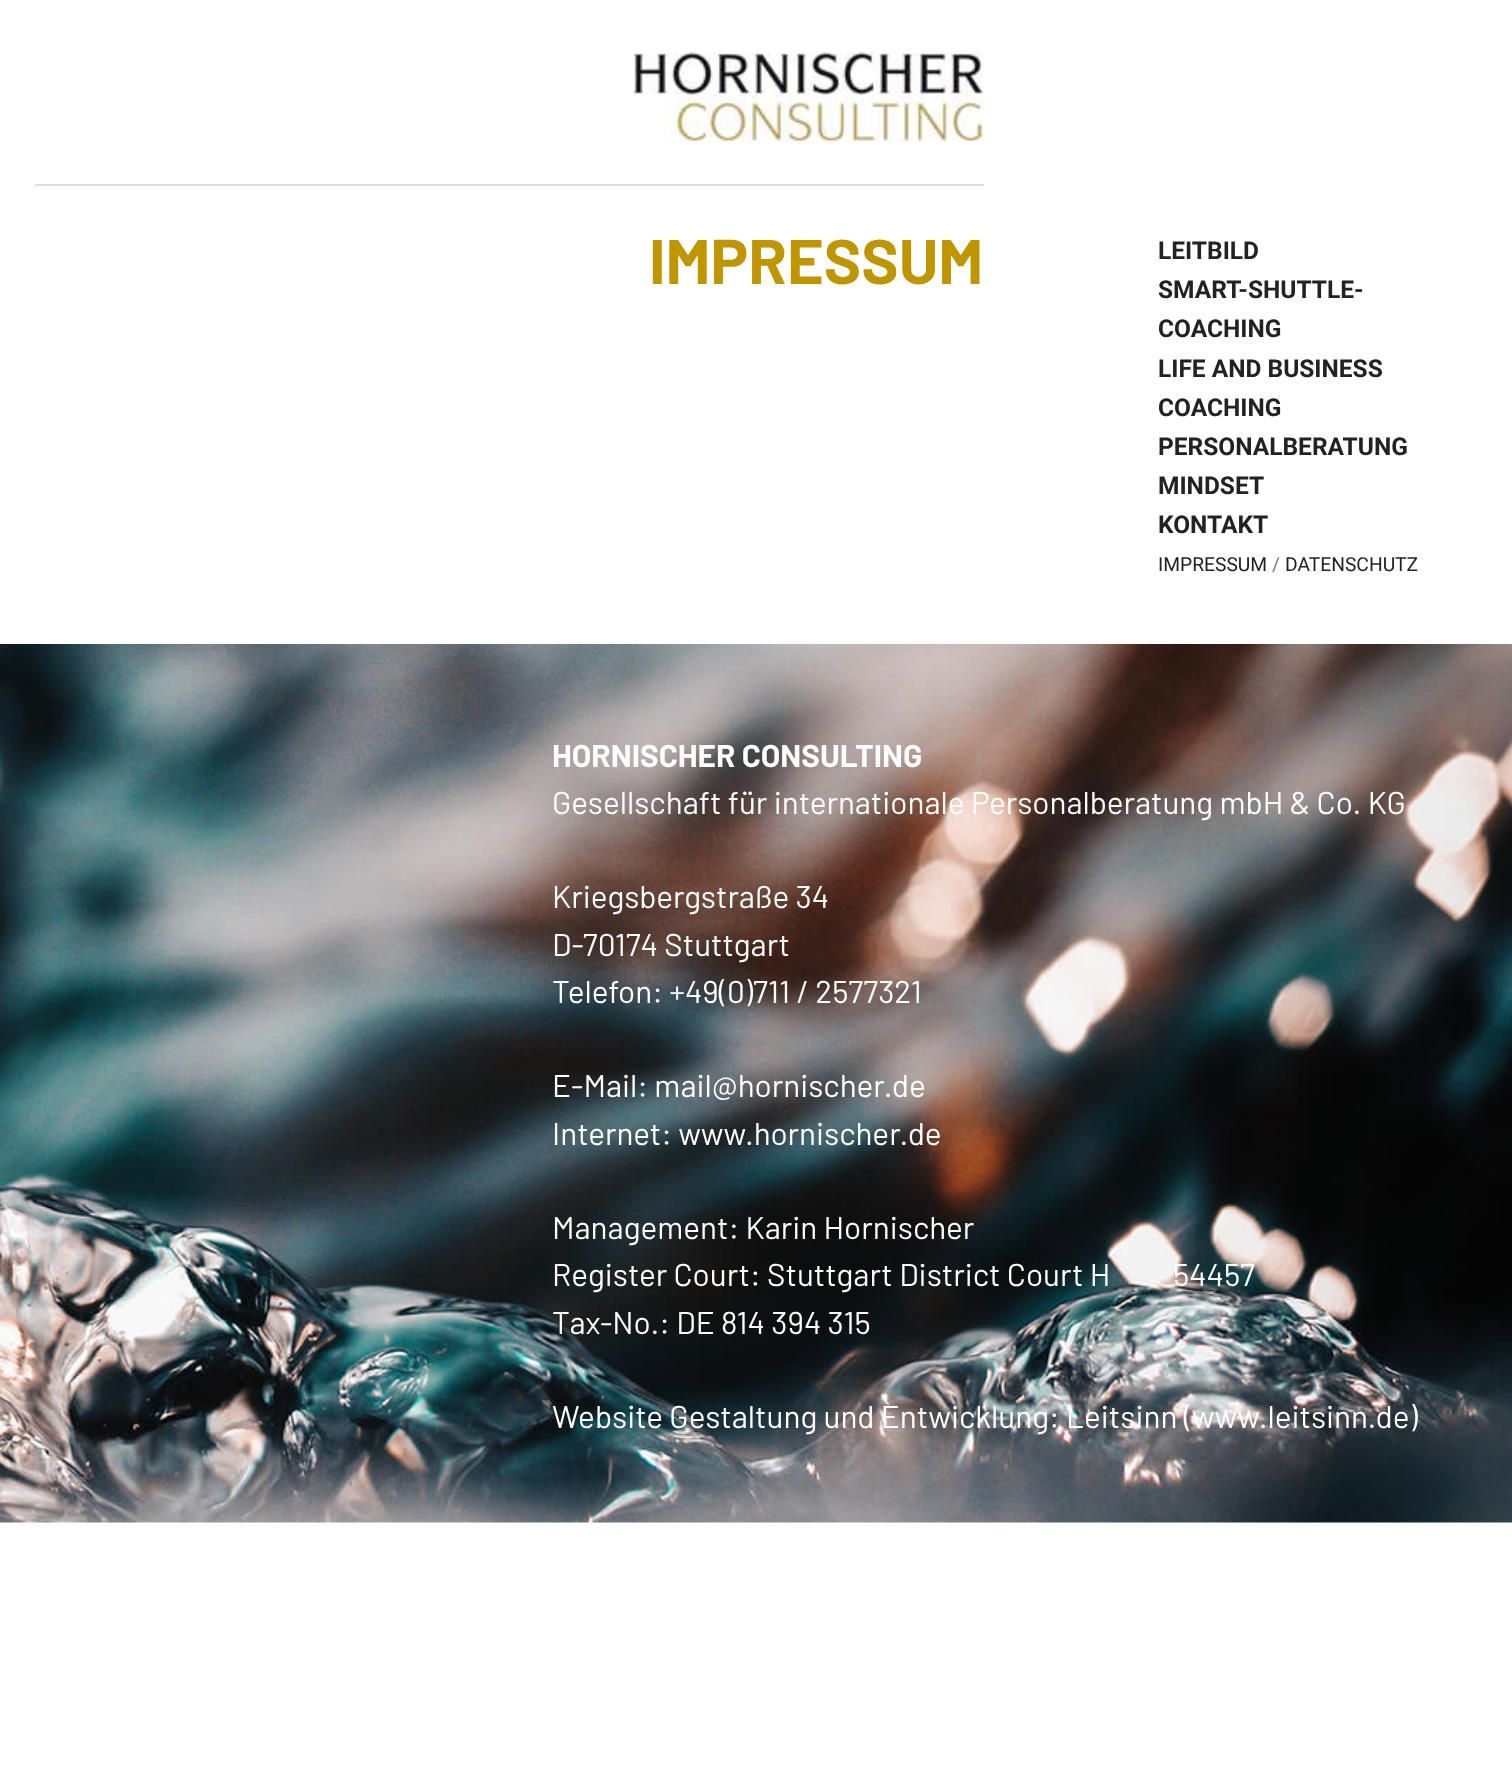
(async () => {
    const canvas = document.querySelector("canvas");
    canvas.width = 1512;
    canvas.height = 1769;
    const context = canvas.getContext("2d");
    context.miterLimit = 4;
    context.fontKerning = "normal";
    function write(s, x, y, font, color) {
        context.font = font;
        context.fillStyle = color;
        context.fillText(s, x, y);
    }
    function block(x, y, w, h, color) {
        context.fillStyle = color;
        context.fillRect(x, y, w, h);
    }
    async function photo(src, x, y, w, h) {
        const img = new Image();
        img.src = src;
        await img.decode();
        context.drawImage(img, x, y, w, h);
    }

    block(0, 0, 1512, 1769, "rgb(255, 255, 255)");
    await photo("media/1.png", 0, 644, 1512, 879);
    await photo("media/2.png", 633, 52, 351, 90);
    block(35, 184, 949, 2, "rgb(221, 221, 221)");
    write("IMPRESSUM", 649, 284, "bold 63px Barlow", "rgb(191, 149, 0)");
    write("LEITBILD", 1158, 259, "bold 24.5px Roboto", "rgb(34, 34, 34)");
    write("SMART-SHUTTLE-", 1158, 298, "bold 24.5px Roboto", "rgb(34, 34, 34)");
    write("COACHING", 1158, 337, "bold 24.5px Roboto", "rgb(34, 34, 34)");
    write("LIFE AND BUSINESS", 1158, 377, "bold 24.5px Roboto", "rgb(34, 34, 34)");
    write("COACHING", 1158, 416, "bold 24.5px Roboto", "rgb(34, 34, 34)");
    write("PERSONALBERATUNG", 1158, 455, "bold 24.5px Roboto", "rgb(34, 34, 34)");
    write("MINDSET", 1158, 494, "bold 24.5px Roboto", "rgb(34, 34, 34)");
    write("KONTAKT", 1158, 533, "bold 24.5px Roboto", "rgb(34, 34, 34)");
    write("IMPRESSUM", 1158, 571, "19.25px Roboto", "rgb(34, 34, 34)");
    write("/", 1272, 571, "19.25px Roboto", "rgb(122, 122, 122)");
    write("DATENSCHUTZ", 1285, 571, "19.25px Roboto", "rgb(34, 34, 34)");
    write("HORNISCHER CONSULTING", 552, 767, "bold 31.5px Barlow", "rgb(255, 255, 255)");
    write("Gesellschaft für internationale Personalberatung mbH & Co. KG", 552, 814, "31.5px Barlow", "rgb(255, 255, 255)");
    write("Kriegsbergstraße 34", 552, 908, "31.5px Barlow", "rgb(255, 255, 255)");
    write("D-70174 Stuttgart", 552, 956, "31.5px Barlow", "rgb(255, 255, 255)");
    write("Telefon: +49(0)711 / 2577321", 552, 1003, "31.5px Barlow", "rgb(255, 255, 255)");
    write("E-Mail: mail@hornischer.de", 552, 1097, "31.5px Barlow", "rgb(255, 255, 255)");
    write("Internet: www.hornischer.de", 552, 1145, "31.5px Barlow", "rgb(255, 255, 255)");
    write("Management: Karin Hornischer", 552, 1239, "31.5px Barlow", "rgb(255, 255, 255)");
    write("Register Court: Stuttgart District Court H", 552, 1286, "31.5px Barlow", "rgb(255, 255, 255)");
    write("54457", 1173, 1286, "31.5px Barlow", "rgb(255, 255, 255)");
    write("Tax-No.: DE 814 394 315", 552, 1334, "31.5px Barlow", "rgb(255, 255, 255)");
    write("Website Gestaltung und Entwicklung: Leitsinn (www.leitsinn.de)", 552, 1428, "31.5px Barlow", "rgb(255, 255, 255)");
})();
